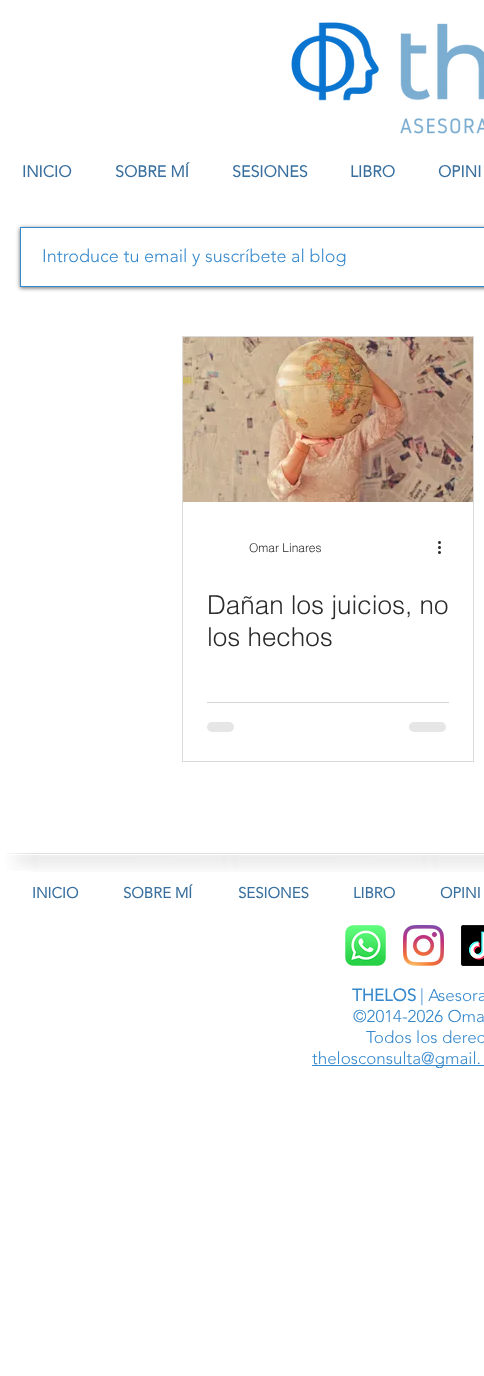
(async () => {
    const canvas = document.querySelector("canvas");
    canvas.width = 484;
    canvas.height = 1376;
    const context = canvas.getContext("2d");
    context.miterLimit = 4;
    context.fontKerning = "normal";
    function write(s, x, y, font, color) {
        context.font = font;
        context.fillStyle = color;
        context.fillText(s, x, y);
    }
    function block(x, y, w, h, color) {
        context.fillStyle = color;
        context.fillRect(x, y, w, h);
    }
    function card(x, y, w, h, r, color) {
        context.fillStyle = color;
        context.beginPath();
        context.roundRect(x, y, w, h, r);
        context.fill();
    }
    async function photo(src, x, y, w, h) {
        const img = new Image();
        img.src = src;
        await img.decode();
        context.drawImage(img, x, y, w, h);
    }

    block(0, 0, 484, 1376, "rgb(255, 255, 255)");
    await photo("media/1.png", 291, 22, 193, 112);
    write("INICIO", 22, 177, "bold 16px 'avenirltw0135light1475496'", "rgb(56, 111, 158)");
    write("SOBRE MÍ", 115, 177, "bold 16px 'avenirltw0135light1475496'", "rgb(56, 111, 158)");
    write("SESIONES", 232, 177, "bold 16px 'avenirltw0135light1475496'", "rgb(56, 111, 158)");
    write("LIBRO", 350, 177, "bold 16px 'avenirltw0135light1475496'", "rgb(56, 111, 158)");
    write("OPINI", 438, 177, "bold 16px 'avenirltw0135light1475496'", "rgb(56, 111, 158)");
    context.save();
    context.beginPath();
    context.moveTo(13, 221);
    context.lineTo(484, 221);
    context.lineTo(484, 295);
    context.lineTo(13, 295);
    context.closePath();
    context.moveTo(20, 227);
    context.lineTo(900, 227);
    context.lineTo(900, 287);
    context.lineTo(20, 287);
    context.closePath();
    context.clip("evenodd");
    context.fillStyle = "rgba(0, 0, 0, 0.6)";
    context.filter = "blur(2px)";
    context.beginPath();
    context.rect(20, 228, 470, 60);
    context.fill();
    context.filter = "none";
    context.restore();
    context.strokeStyle = "rgb(53, 136, 204)";
    context.strokeRect(20.5, 227.5, 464, 59);
    write("Introduce tu email y suscríbete al blog", 42, 262, "300 18px 'avenirltw0135light1475496'", "rgb(53, 136, 204)");
    context.strokeStyle = "rgb(218, 218, 218)";
    context.strokeRect(182.5, 336.5, 291, 425);
    await photo("media/2.png", 183, 337, 290, 165);
    write("Omar Linares", 249, 552, "300 12px helvetica", "rgb(43, 43, 43)");
    await photo("media/3.png", 438, 541, 3, 13);
    write("Dañan los juicios, no", 207, 614, "300 26px helvetica", "rgb(43, 43, 43)");
    write("los hechos", 207, 646, "300 26px helvetica", "rgb(43, 43, 43)");
    block(207, 702, 242, 1, "rgb(213, 213, 213)");
    card(207, 722, 27, 10, 5, "rgb(230, 230, 230)");
    card(409, 722, 37, 10, 5, "rgb(230, 230, 230)");
    await photo("media/4.png", 6, 853, 24, 18);
    await photo("media/5.png", 30, 853, 454, 19);
    write("INICIO", 32, 898, "bold 15px 'avenirltw0135light1475496'", "rgb(56, 111, 158)");
    write("SOBRE MÍ", 123, 898, "bold 15px 'avenirltw0135light1475496'", "rgb(56, 111, 158)");
    write("SESIONES", 238, 898, "bold 15px 'avenirltw0135light1475496'", "rgb(56, 111, 158)");
    write("LIBRO", 353, 898, "bold 15px 'avenirltw0135light1475496'", "rgb(56, 111, 158)");
    write("OPINI", 440, 898, "bold 15px 'avenirltw0135light1475496'", "rgb(56, 111, 158)");
    await photo("media/6.png", 345, 925, 41, 41);
    await photo("media/7.png", 403, 925, 41, 41);
    await photo("media/8.png", 461, 925, 23, 41);
    write("THELOS", 352, 1001, "bold 17px 'avenirltw0135light1475496'", "rgb(53, 136, 204)");
    write("| Asesora", 420, 1001, "300 17px 'avenirltw0135light1475496'", "rgb(53, 136, 204)");
    write("©2014-2026 Oma", 353, 1022, "300 17px 'avenirltw0135light1475496'", "rgb(53, 136, 204)");
    write("Todos los derec", 366, 1043, "300 17px 'avenirltw0135light1475496'", "rgb(53, 136, 204)");
    block(312, 1065, 172, 1, "rgb(53, 136, 204)");
    write("thelosconsulta@gmail.", 312, 1064, "300 17px 'avenirltw0135light1475496'", "rgb(53, 136, 204)");
})();
